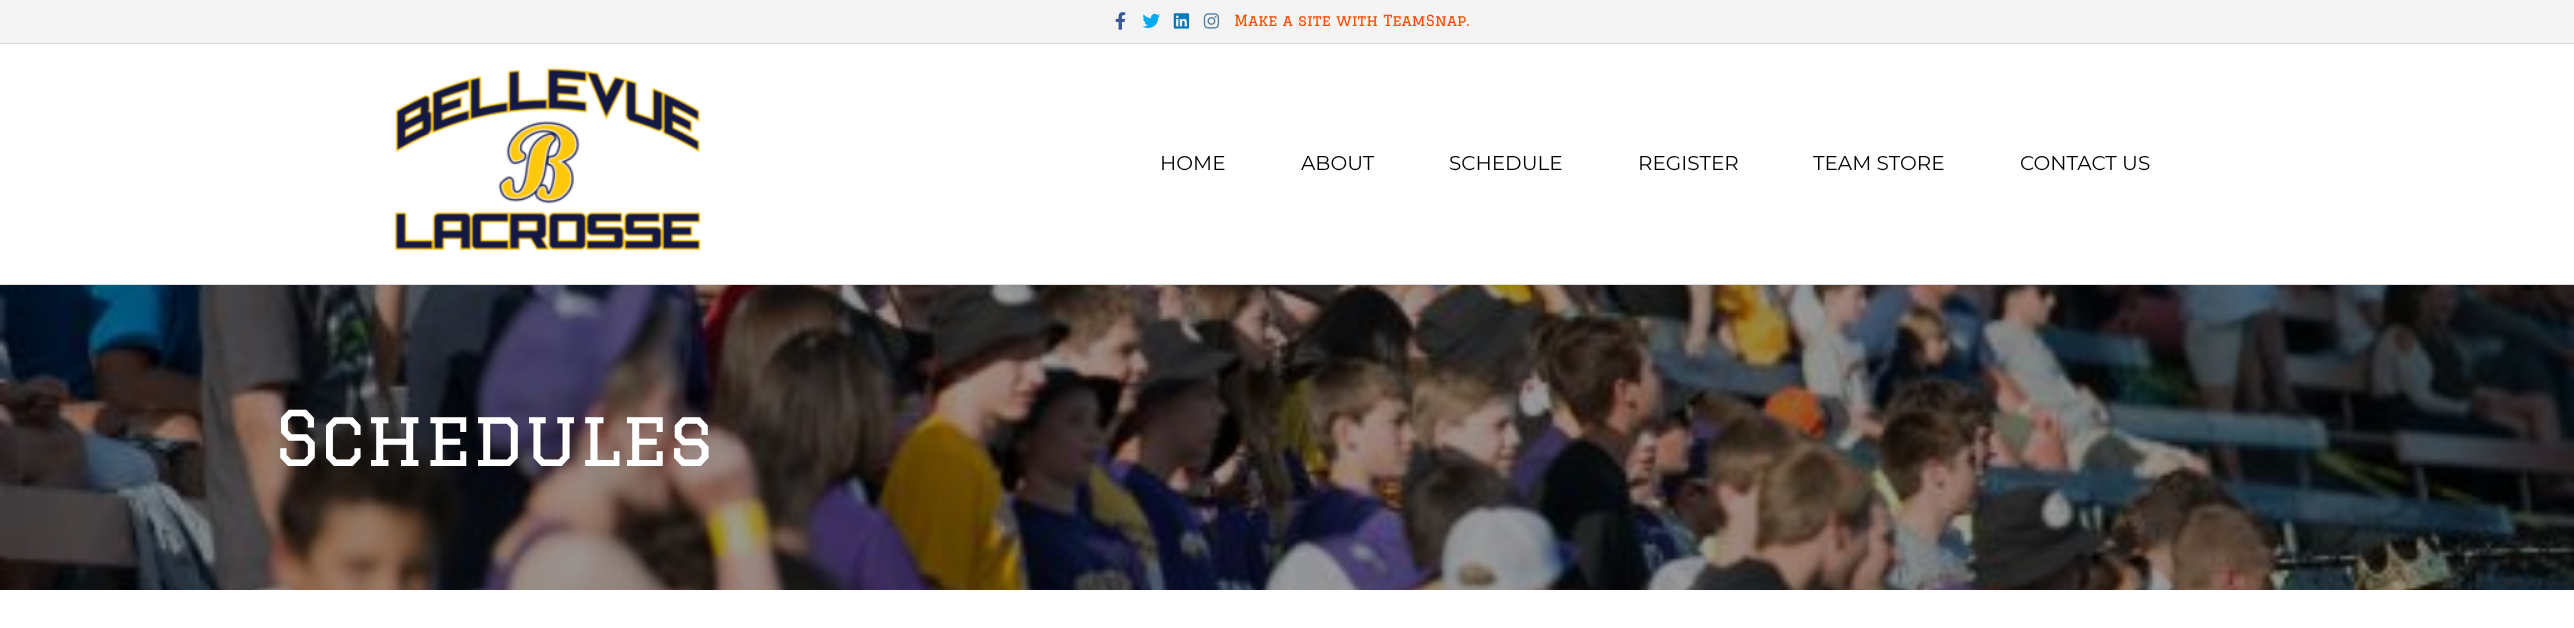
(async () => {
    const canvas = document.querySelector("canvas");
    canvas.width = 2574;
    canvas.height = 628;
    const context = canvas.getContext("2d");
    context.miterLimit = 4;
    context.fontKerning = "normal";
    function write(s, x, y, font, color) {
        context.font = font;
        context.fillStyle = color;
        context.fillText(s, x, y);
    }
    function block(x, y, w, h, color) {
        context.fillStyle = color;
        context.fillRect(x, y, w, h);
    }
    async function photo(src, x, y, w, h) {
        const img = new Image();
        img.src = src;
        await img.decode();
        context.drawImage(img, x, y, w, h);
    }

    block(0, 0, 2574, 628, "rgb(244, 244, 244)");
    block(0, 43, 2574, 1, "rgb(219, 219, 219)");
    await photo("media/1.png", 1115, 12, 11, 18);
    await photo("media/2.png", 1142, 13, 18, 15);
    await photo("media/3.png", 1173, 13, 17, 16);
    await photo("media/4.png", 1203, 13, 17, 16);
    write("Make a site with TeamSnap.", 1234, 26, "15px Graduate", "rgb(255, 73, 0)");
    block(0, 44, 2574, 240, "rgb(255, 255, 255)");
    block(0, 284, 2574, 1, "rgb(222, 222, 222)");
    await photo("media/5.png", 394, 68, 308, 183);
    write("HOME", 1160, 170, "100 20px Montserrat", "rgb(0, 0, 0)");
    write("ABOUT", 1301, 170, "100 20px Montserrat", "rgb(0, 0, 0)");
    write("SCHEDULE", 1449, 170, "100 20px Montserrat", "rgb(0, 0, 0)");
    write("REGISTER", 1638, 170, "100 20px Montserrat", "rgb(0, 0, 0)");
    write("TEAM STORE", 1813, 170, "100 20px Montserrat", "rgb(0, 0, 0)");
    write("CONTACT US", 2020, 170, "100 20px Montserrat", "rgb(0, 0, 0)");
    block(0, 590, 2574, 38, "rgb(255, 255, 255)");
    await photo("media/6.png", 0, 285, 2574, 305);
    write("Schedules", 275, 466, "75px Graduate", "rgb(255, 255, 255)");
})();
